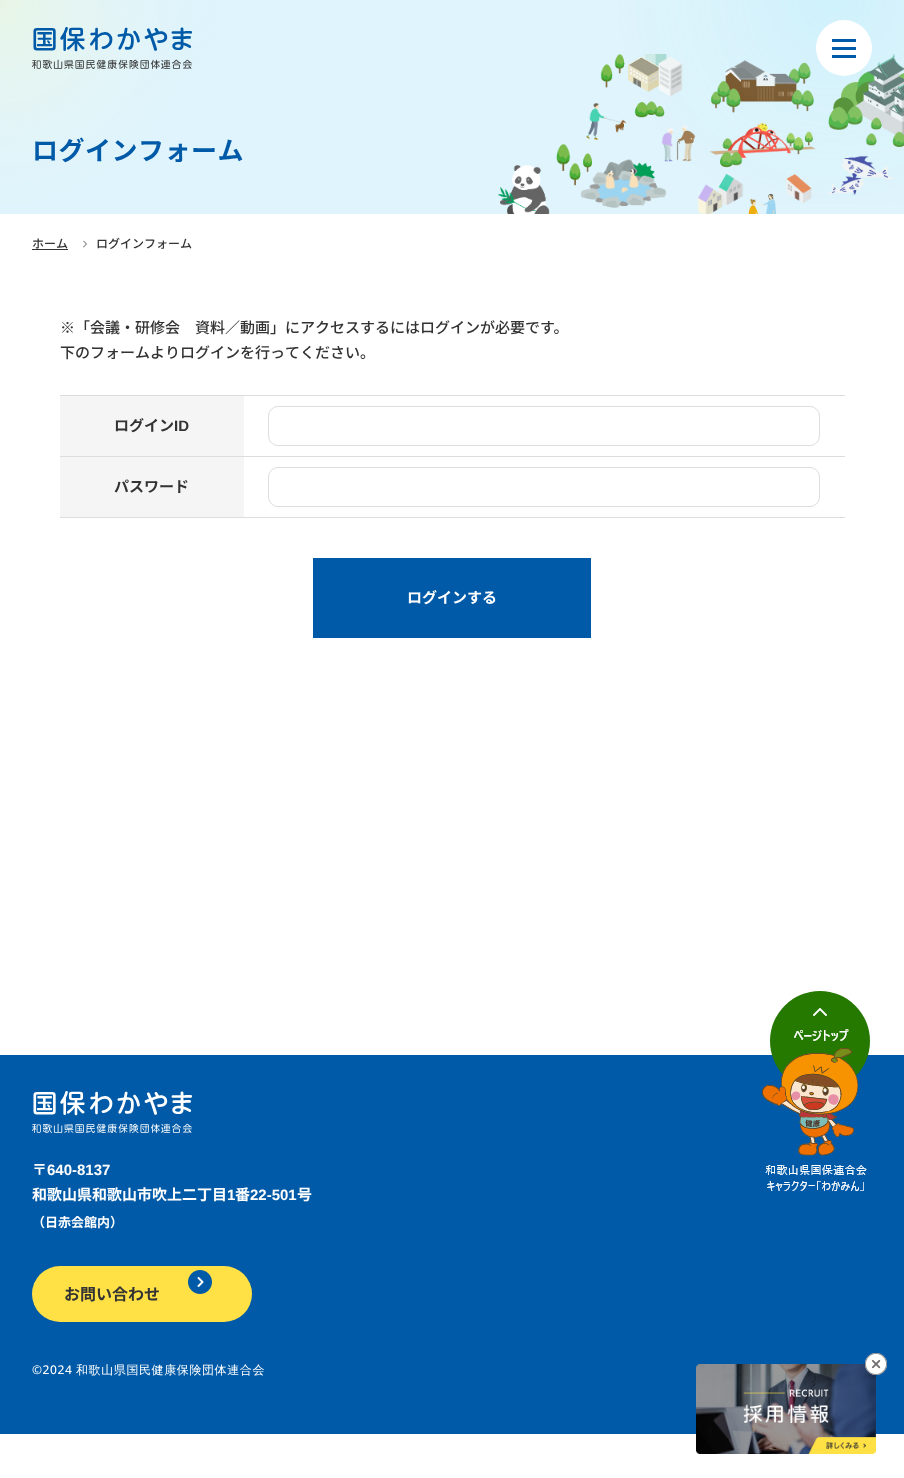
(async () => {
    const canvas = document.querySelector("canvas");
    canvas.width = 904;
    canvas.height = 1478;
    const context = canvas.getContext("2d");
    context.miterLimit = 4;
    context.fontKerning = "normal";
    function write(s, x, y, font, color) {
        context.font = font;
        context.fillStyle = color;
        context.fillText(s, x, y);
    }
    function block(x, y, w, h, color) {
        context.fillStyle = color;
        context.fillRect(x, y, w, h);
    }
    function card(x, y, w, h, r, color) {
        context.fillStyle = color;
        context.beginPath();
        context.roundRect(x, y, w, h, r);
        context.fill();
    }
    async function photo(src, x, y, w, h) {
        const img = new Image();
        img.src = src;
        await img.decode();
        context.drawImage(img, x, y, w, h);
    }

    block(0, 0, 904, 1478, "rgb(255, 255, 255)");
    block(0, 0, 904, 214, "rgb(223, 244, 252)");
    await photo("media/3.png", 497, 54, 407, 160);
    await photo("media/2.png", 0, 0, 904, 204);
    await photo("media/1.png", 32, 27, 160, 42);
    context.fillStyle = "rgb(255, 255, 255)";
    context.beginPath();
    context.arc(844, 48, 28, 0, Math.PI * 2);
    context.fill();
    block(832, 39, 24, 3, "rgb(0, 90, 167)");
    block(832, 47, 24, 3, "rgb(0, 90, 167)");
    block(832, 55, 24, 3, "rgb(0, 90, 167)");
    context.letterSpacing = "0.5px";
    write("ログインフォーム", 32, 160, "bold 26px Noto Sans JP", "rgb(0, 90, 167)");
    context.letterSpacing = "0px";
    write("ホーム", 32, 248, "500 12px Noto Sans JP", "rgb(51, 51, 51)");
    block(32, 249, 36, 1, "rgb(51, 51, 51)");
    await photo("media/4.png", 83, 241, 4, 7);
    write("ログインフォーム", 96, 248, "500 12px Noto Sans JP", "rgb(51, 51, 51)");
    write("※「会議・研修会　資料／動画」にアクセスするにはログインが必要です。", 60, 333, "500 15px Noto Sans JP", "rgb(51, 51, 51)");
    write("下のフォームよりログインを行ってください。", 60, 358, "500 15px Noto Sans JP", "rgb(51, 51, 51)");
    block(60, 395, 785, 1, "rgb(221, 221, 221)");
    block(60, 396, 184, 60, "rgb(245, 245, 245)");
    write("ログイン", 114, 431, "bold 15px Noto Sans JP", "rgb(51, 51, 51)");
    write("ID", 174, 431, "bold 15px Liberation Sans", "rgb(51, 51, 51)");
    context.beginPath();
    context.roundRect(268.5, 406.5, 551, 39, 9.5);
    context.strokeStyle = "rgb(221, 221, 221)";
    context.stroke();
    block(60, 456, 785, 1, "rgb(221, 221, 221)");
    block(60, 517, 785, 1, "rgb(221, 221, 221)");
    context.beginPath();
    context.roundRect(268.5, 467.5, 551, 39, 9.5);
    context.stroke();
    block(60, 457, 184, 60, "rgb(245, 245, 245)");
    write("パスワード", 114, 492, "bold 15px Noto Sans JP", "rgb(51, 51, 51)");
    block(313, 558, 278, 80, "rgb(0, 90, 167)");
    write("ログインする", 407, 603, "bold 15px Noto Sans JP", "rgb(255, 255, 255)");
    block(0, 1055, 904, 379, "rgb(0, 90, 167)");
    await photo("media/5.png", 762, 991, 108, 200);
    await photo("media/6.png", 32, 1091, 160, 42);
    write("〒", 32, 1175, "bold 15px Noto Sans JP", "rgb(255, 255, 255)");
    write("640-8137", 47, 1175, "bold 15px Liberation Sans", "rgb(255, 255, 255)");
    write("和歌山県和歌山市吹上二丁目", 32, 1200, "bold 15px Noto Sans JP", "rgb(255, 255, 255)");
    write("1", 227, 1200, "bold 15px Liberation Sans", "rgb(255, 255, 255)");
    write("番", 235, 1200, "bold 15px Noto Sans JP", "rgb(255, 255, 255)");
    write("22-501", 250, 1200, "bold 15px Liberation Sans", "rgb(255, 255, 255)");
    write("号", 297, 1200, "bold 15px Noto Sans JP", "rgb(255, 255, 255)");
    write("（日赤会館内）", 32, 1227, "bold 13px Noto Sans JP", "rgb(255, 255, 255)");
    card(32, 1266, 220, 56, 28, "rgb(255, 224, 69)");
    write("お問い合わせ", 64, 1300, "bold 16px Noto Sans JP", "rgb(51, 51, 51)");
    await photo("media/7.png", 188, 1270, 24, 24);
    context.letterSpacing = "0.6px";
    write("©2024", 32, 1374, "500 12px Open Sans", "rgb(255, 255, 255)");
    write("和歌山県国民健康保険団体連合会", 76, 1374, "500 12px WenQuanYi Zen Hei", "rgb(255, 255, 255)");
    await photo("media/9.png", 696, 1364, 180, 90);
    await photo("media/8.png", 865, 1353, 22, 22);
})();
